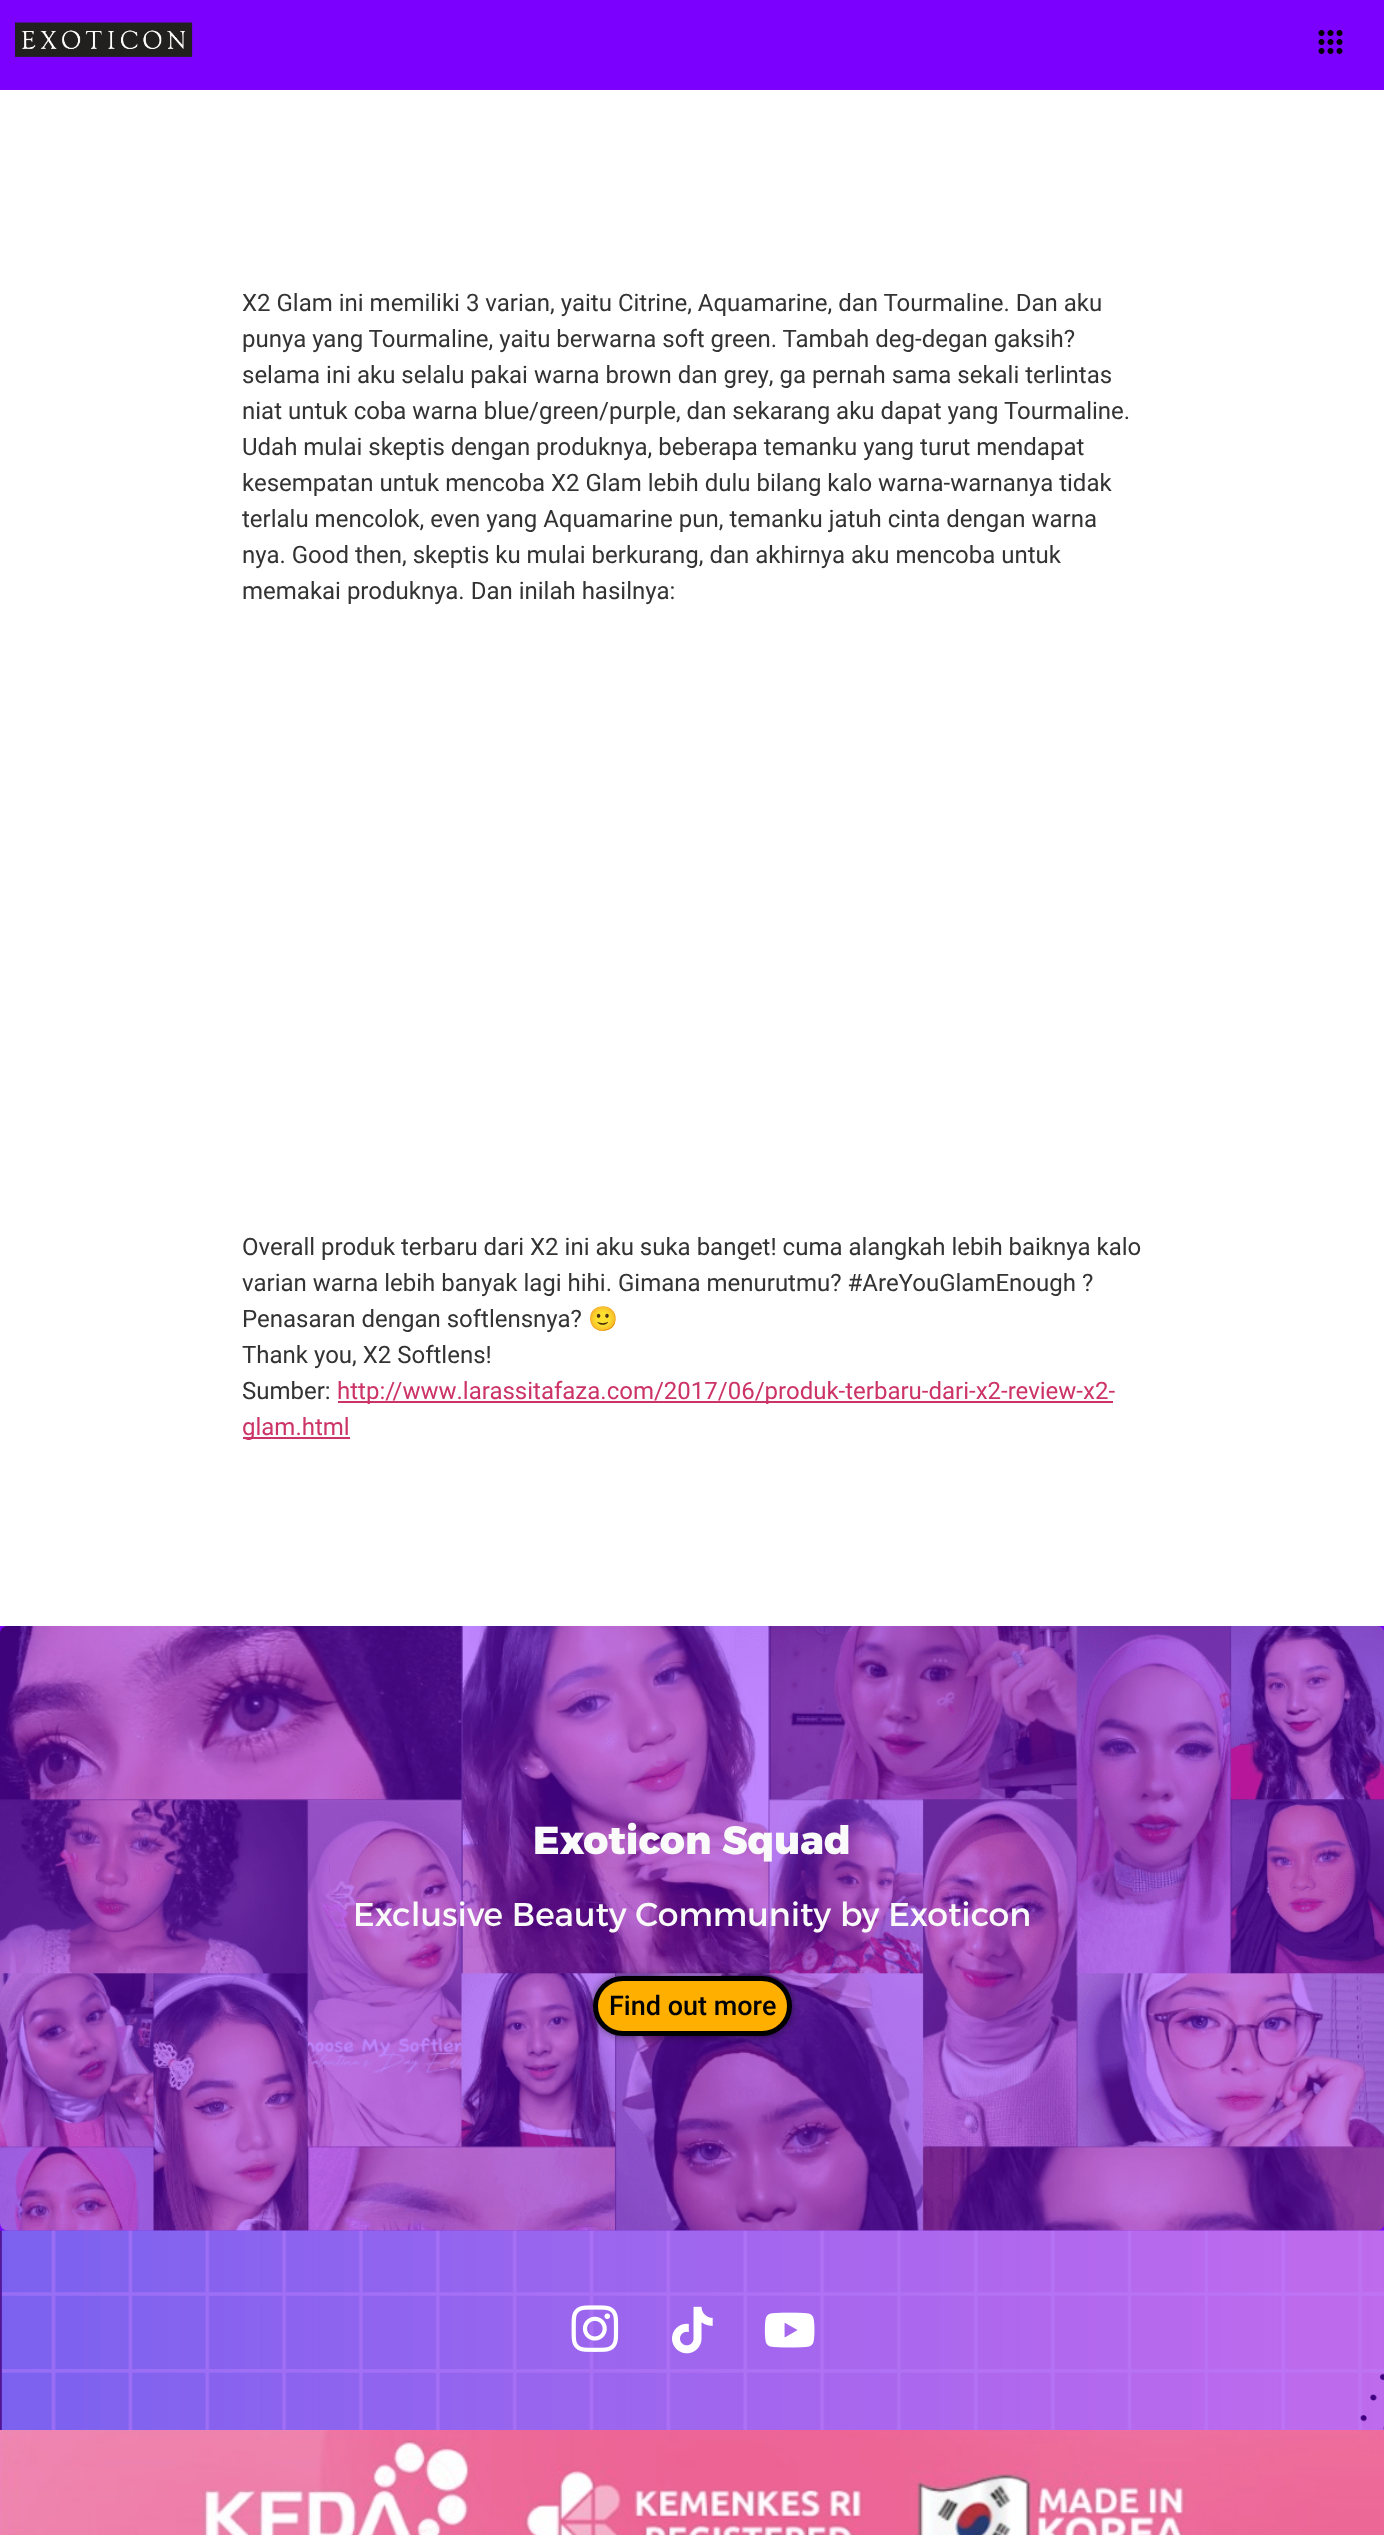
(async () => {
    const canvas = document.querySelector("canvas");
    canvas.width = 1384;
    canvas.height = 2535;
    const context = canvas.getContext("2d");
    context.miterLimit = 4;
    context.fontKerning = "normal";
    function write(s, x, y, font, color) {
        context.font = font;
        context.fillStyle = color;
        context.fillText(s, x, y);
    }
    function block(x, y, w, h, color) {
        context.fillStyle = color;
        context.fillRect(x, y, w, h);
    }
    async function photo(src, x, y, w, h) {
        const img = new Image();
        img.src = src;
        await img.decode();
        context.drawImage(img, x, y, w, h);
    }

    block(0, 0, 1384, 2535, "rgb(255, 255, 255)");
    block(0, 0, 1384, 90, "rgb(124, 0, 254)");
    await photo("media/1.png", 15, 22, 178, 35);
    await photo("media/2.png", 1318, 30, 25, 24);
    write("X2 Glam ini memiliki 3 varian, yaitu Citrine, Aquamarine, dan Tourmaline. Dan aku", 242, 311, "24px Roboto", "rgb(51, 51, 51)");
    write("punya yang Tourmaline, yaitu berwarna soft green. Tambah deg-degan gaksih?", 242, 347, "24px Roboto", "rgb(51, 51, 51)");
    write("selama ini aku selalu pakai warna brown dan grey, ga pernah sama sekali terlintas", 242, 383, "24px Roboto", "rgb(51, 51, 51)");
    write("niat untuk coba warna blue/green/purple, dan sekarang aku dapat yang Tourmaline.", 242, 419, "24px Roboto", "rgb(51, 51, 51)");
    write("Udah mulai skeptis dengan produknya, beberapa temanku yang turut mendapat", 242, 455, "24px Roboto", "rgb(51, 51, 51)");
    write("kesempatan untuk mencoba X2 Glam lebih dulu bilang kalo warna-warnanya tidak", 242, 491, "24px Roboto", "rgb(51, 51, 51)");
    write("terlalu mencolok, even yang Aquamarine pun, temanku jatuh cinta dengan warna", 242, 527, "24px Roboto", "rgb(51, 51, 51)");
    write("nya. Good then, skeptis ku mulai berkurang, dan akhirnya aku mencoba untuk", 242, 563, "24px Roboto", "rgb(51, 51, 51)");
    write("memakai produknya. Dan inilah hasilnya:", 242, 599, "24px Roboto", "rgb(51, 51, 51)");
    write("Overall produk terbaru dari X2 ini aku suka banget! cuma alangkah lebih baiknya kalo", 242, 1255, "24px Roboto", "rgb(51, 51, 51)");
    write("varian warna lebih banyak lagi hihi. Gimana menurutmu? #AreYouGlamEnough ?", 242, 1291, "24px Roboto", "rgb(51, 51, 51)");
    write("Penasaran dengan softlensnya?", 242, 1327, "24px Roboto", "rgb(51, 51, 51)");
    write("🙂", 588, 1327, "24px Noto Color Emoji", "rgb(51, 51, 51)");
    write("Thank you, X2 Softlens!", 242, 1363, "24px Roboto", "rgb(51, 51, 51)");
    write("Sumber:", 242, 1399, "24px Roboto", "rgb(51, 51, 51)");
    block(338, 1401, 775, 2, "rgb(204, 51, 102)");
    write("http://www.larassitafaza.com/2017/06/produk-terbaru-dari-x2-review-x2-", 337, 1399, "24px Roboto", "rgb(204, 51, 102)");
    block(243, 1437, 107, 2, "rgb(204, 51, 102)");
    write("glam.html", 242, 1435, "24px Roboto", "rgb(204, 51, 102)");
    block(0, 1626, 1384, 804, "rgb(124, 0, 254)");
    await photo("media/3.png", 0, 1626, 1384, 605);
    write("Exoticon Squad", 533, 1854, "800 39px Alexandria", "rgb(250, 250, 250)");
    write("Exclusive Beauty Community by Exoticon", 353, 1926, "33px Alexandria", "rgb(250, 250, 250)");
    context.fillStyle = "rgba(0, 0, 0, 0.5)";
    context.filter = "blur(5px)";
    context.beginPath();
    context.roundRect(593, 1976, 199, 60, 30);
    context.fill();
    context.filter = "none";
    context.fillStyle = "rgb(255, 175, 0)";
    context.beginPath();
    context.roundRect(595.5, 1978.5, 194, 55, 27.5);
    context.fill();
    context.strokeStyle = "rgb(0, 0, 0)";
    context.lineWidth = 5;
    context.stroke();
    write("Find out more", 609, 2015, "500 27px Roboto", "rgb(0, 0, 0)");
    await photo("media/4.png", 0, 2230, 1384, 200);
    await photo("media/5.png", 571, 2305, 48, 47);
    await photo("media/6.png", 672, 2306, 41, 48);
    await photo("media/7.png", 764, 2312, 51, 36);
    await photo("media/8.png", 0, 2430, 1384, 105);
})();
